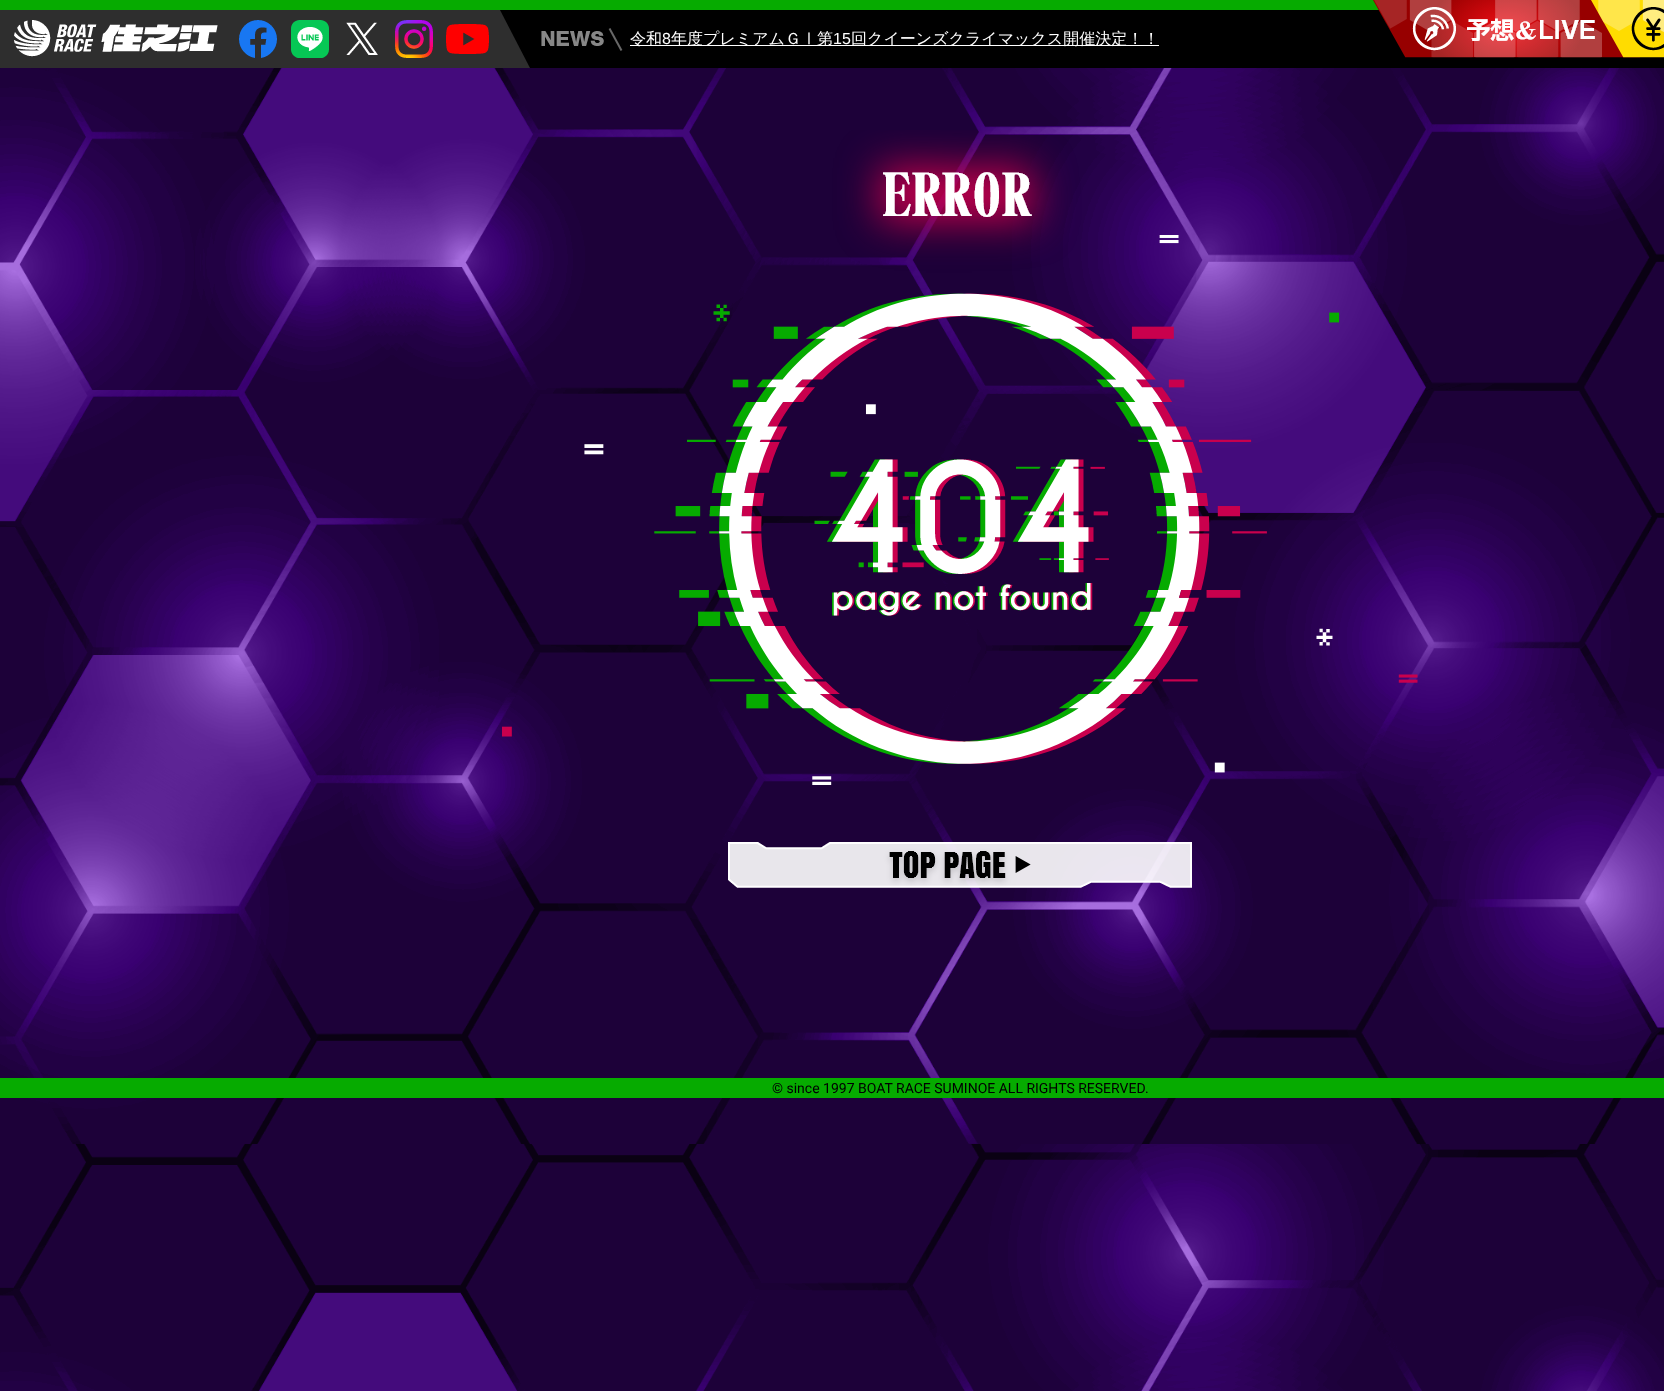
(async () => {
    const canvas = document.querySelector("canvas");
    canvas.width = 1664;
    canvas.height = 1391;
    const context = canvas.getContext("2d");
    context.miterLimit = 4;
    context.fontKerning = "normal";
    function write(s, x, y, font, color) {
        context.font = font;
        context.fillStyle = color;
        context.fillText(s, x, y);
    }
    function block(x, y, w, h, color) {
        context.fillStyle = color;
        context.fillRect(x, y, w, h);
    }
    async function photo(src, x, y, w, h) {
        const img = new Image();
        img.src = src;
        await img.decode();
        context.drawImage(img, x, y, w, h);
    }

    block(0, 0, 1664, 1391, "rgb(255, 255, 255)");
    await photo("media/1.png", 0, 68, 1664, 1323);
    block(0, 0, 1379, 10, "rgb(6, 171, 0)");
    block(500, 10, 1164, 58, "rgb(0, 0, 0)");
    await photo("media/2.png", 1373, 0, 267, 58);
    await photo("media/3.png", 0, 10, 530, 58);
    await photo("media/4.png", 1591, 0, 73, 58);
    await photo("media/5.png", 14, 20, 204, 37);
    await photo("media/6.png", 239, 20, 38, 38);
    await photo("media/7.png", 291, 20, 38, 38);
    await photo("media/8.png", 346, 22, 32, 33);
    await photo("media/9.png", 395, 20, 38, 38);
    await photo("media/10.png", 446, 24, 43, 30);
    await photo("media/11.png", 541, 28, 82, 23);
    block(630, 45, 529, 1, "rgb(255, 255, 255)");
    write("令和", 630, 44, "500 16px WenQuanYi Zen Hei", "rgb(255, 255, 255)");
    write("8", 662, 44, "16px Liberation Sans", "rgb(255, 255, 255)");
    write("年度プレミアムＧⅠ第", 671, 44, "500 16px WenQuanYi Zen Hei", "rgb(255, 255, 255)");
    write("15", 833, 44, "16px Liberation Sans", "rgb(255, 255, 255)");
    write("回クイーンズクライマックス開催決定！！", 851, 44, "500 16px WenQuanYi Zen Hei", "rgb(255, 255, 255)");
    await photo("media/12.png", 502, 130, 916, 655);
    await photo("media/13.png", 728, 842, 464, 46);
    block(0, 1078, 1664, 20, "rgb(6, 171, 0)");
    write("© since 1997 BOAT RACE SUMINOE ALL RIGHTS RESERVED.", 772, 1093, "14px Roboto", "rgb(0, 0, 0)");
})();
